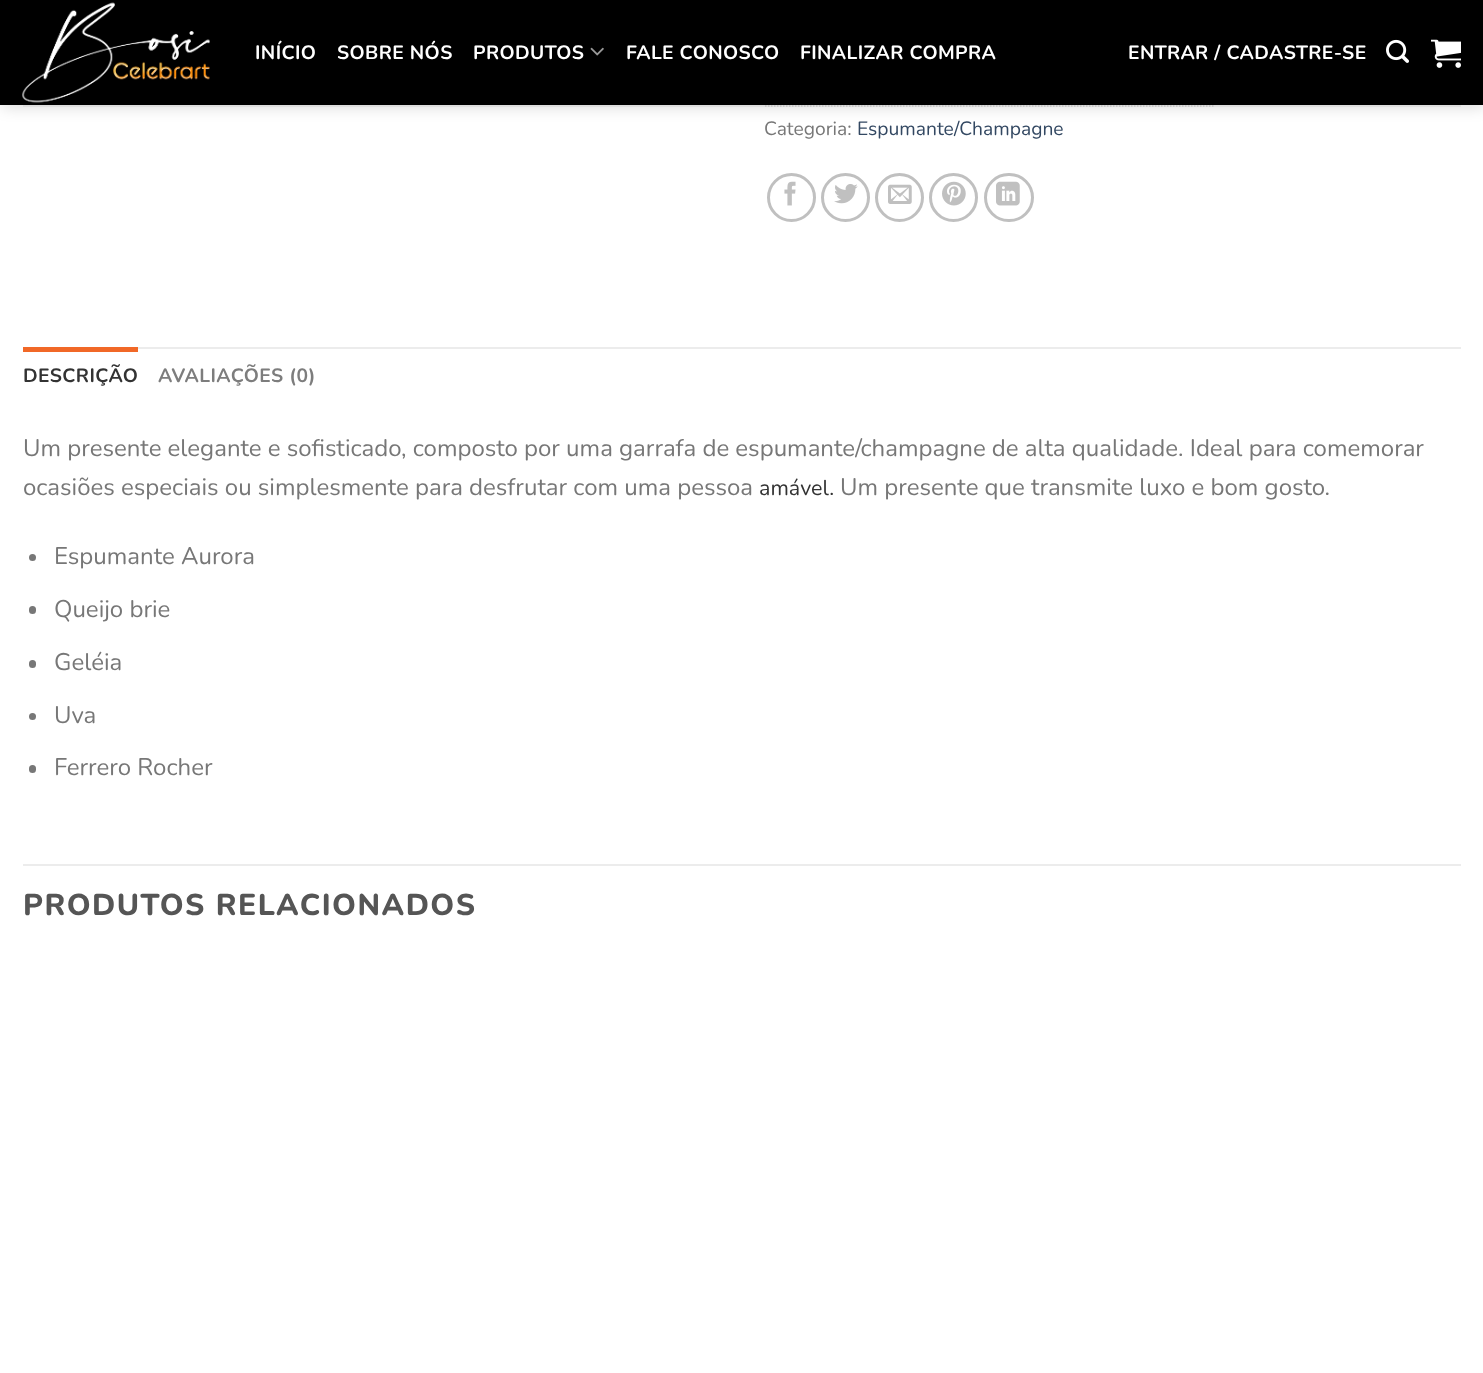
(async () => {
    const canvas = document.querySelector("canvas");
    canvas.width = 1483;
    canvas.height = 1373;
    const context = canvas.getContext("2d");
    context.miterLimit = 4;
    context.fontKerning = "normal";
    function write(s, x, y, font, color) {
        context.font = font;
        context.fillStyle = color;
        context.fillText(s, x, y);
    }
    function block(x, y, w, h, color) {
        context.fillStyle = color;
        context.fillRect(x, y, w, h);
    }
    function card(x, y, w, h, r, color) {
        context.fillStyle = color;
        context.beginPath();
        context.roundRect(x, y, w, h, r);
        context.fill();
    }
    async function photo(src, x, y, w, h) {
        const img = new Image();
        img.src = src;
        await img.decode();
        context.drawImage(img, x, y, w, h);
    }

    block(0, 0, 1483, 1373, "rgb(255, 255, 255)");
    context.beginPath();
    context.moveTo(765, 106);
    context.lineTo(1213.5, 106);
    context.strokeStyle = "rgb(221, 221, 221)";
    context.lineWidth = 1.5;
    context.setLineDash([1.5, 1.5]);
    context.stroke();
    context.fillStyle = "rgba(0, 0, 0, 0.15)";
    context.filter = "blur(7.5px)";
    context.beginPath();
    context.rect(2, 2, 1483, 105);
    context.fill();
    context.filter = "none";
    block(0, 0, 1483, 105, "rgb(0, 0, 0)");
    await photo("media/1.png", 22, 2, 188, 101);
    context.letterSpacing = "0.4px";
    write("INÍCIO", 255, 59, "bold 19.25px Nunito", "rgb(255, 255, 255)");
    write("SOBRE NÓS", 337, 59, "bold 19.25px Nunito", "rgb(255, 255, 255)");
    write("PRODUTOS", 473, 59, "bold 19.25px Nunito", "rgb(255, 255, 255)");
    await photo("media/2.png", 590, 47, 14, 9);
    write("FALE CONOSCO", 626, 59, "bold 19.25px Nunito", "rgb(255, 255, 255)");
    write("FINALIZAR COMPRA", 800, 59, "bold 19.25px Nunito", "rgb(255, 255, 255)");
    write("ENTRAR / CADASTRE-SE", 1128, 59, "bold 19.25px Nunito", "rgb(255, 255, 255)");
    await photo("media/3.png", 1386, 39, 23, 24);
    await photo("media/4.png", 1431, 39, 30, 29);
    block(23, 105, 1438, 2, "rgba(119, 119, 119, 0.1)");
    context.letterSpacing = "0px";
    write("Categoria:", 764, 135, "19.25px Nunito", "rgb(119, 119, 119)");
    write("Espumante/Champagne", 857, 135, "19.25px Nunito", "rgb(51, 72, 98)");
    context.beginPath();
    context.arc(791.5, 197.5, 23, 0, Math.PI * 2);
    context.strokeStyle = "rgb(192, 192, 192)";
    context.lineWidth = 3;
    context.setLineDash([]);
    context.stroke();
    await photo("media/5.png", 784, 181, 12, 25);
    context.beginPath();
    context.arc(845.5, 197.5, 23, 0, Math.PI * 2);
    context.stroke();
    await photo("media/6.png", 834, 184, 24, 20);
    context.beginPath();
    context.arc(899.5, 197.5, 23, 0, Math.PI * 2);
    context.stroke();
    await photo("media/7.png", 888, 184, 24, 20);
    context.beginPath();
    context.arc(953.5, 197.5, 23, 0, Math.PI * 2);
    context.stroke();
    await photo("media/8.png", 942, 181, 24, 25);
    context.beginPath();
    context.roundRect(985.5, 174.5, 47, 46, 23);
    context.stroke();
    await photo("media/9.png", 996, 181, 24, 25);
    block(138, 347, 1323, 2, "rgb(236, 236, 236)");
    block(23, 347, 115, 5, "rgb(241, 104, 39)");
    context.letterSpacing = "0.4px";
    write("DESCRIÇÃO", 23, 382, "bold 19.25px Nunito", "rgb(51, 51, 51)");
    write("AVALIAÇÕES (0)", 158, 382, "bold 19.25px Nunito", "rgb(125, 125, 125)");
    context.letterSpacing = "0px";
    write("Um presente elegante e sofisticado, composto por uma garrafa de espumante/champagne de alta qualidade. Ideal para comemorar", 23, 456, "24px Nunito", "rgb(119, 119, 119)");
    write("ocasiões especiais ou simplesmente para desfrutar com uma pessoa", 23, 495, "24px Nunito", "rgb(119, 119, 119)");
    write("amável.", 759, 495, "21.5px Nunito", "rgb(51, 51, 51)");
    write("Um presente que transmite luxo e bom gosto.", 840, 495, "24px Nunito", "rgb(119, 119, 119)");
    context.beginPath();
    context.arc(32.5, 557.5, 3.5, 0, Math.PI * 2);
    context.fill();
    write("Espumante Aurora", 54, 564, "24px Nunito", "rgb(119, 119, 119)");
    card(29, 606, 7, 8, 3.5, "rgb(119, 119, 119)");
    write("Queijo brie", 54, 617, "24px Nunito", "rgb(119, 119, 119)");
    card(29, 660, 7, 8, 3.5, "rgb(119, 119, 119)");
    write("Geléia", 54, 670, "24px Nunito", "rgb(119, 119, 119)");
    context.beginPath();
    context.arc(32.5, 716.5, 3.5, 0, Math.PI * 2);
    context.fill();
    write("Uva", 54, 723, "24px Nunito", "rgb(119, 119, 119)");
    card(29, 765, 7, 8, 3.5, "rgb(119, 119, 119)");
    write("Ferrero Rocher", 54, 775, "24px Nunito", "rgb(119, 119, 119)");
    block(23, 864, 1438, 2, "rgb(236, 236, 236)");
    context.letterSpacing = "1.5px";
    write("PRODUTOS RELACIONADOS", 23, 915, "800 30px Nunito", "rgb(85, 85, 85)");
})();
